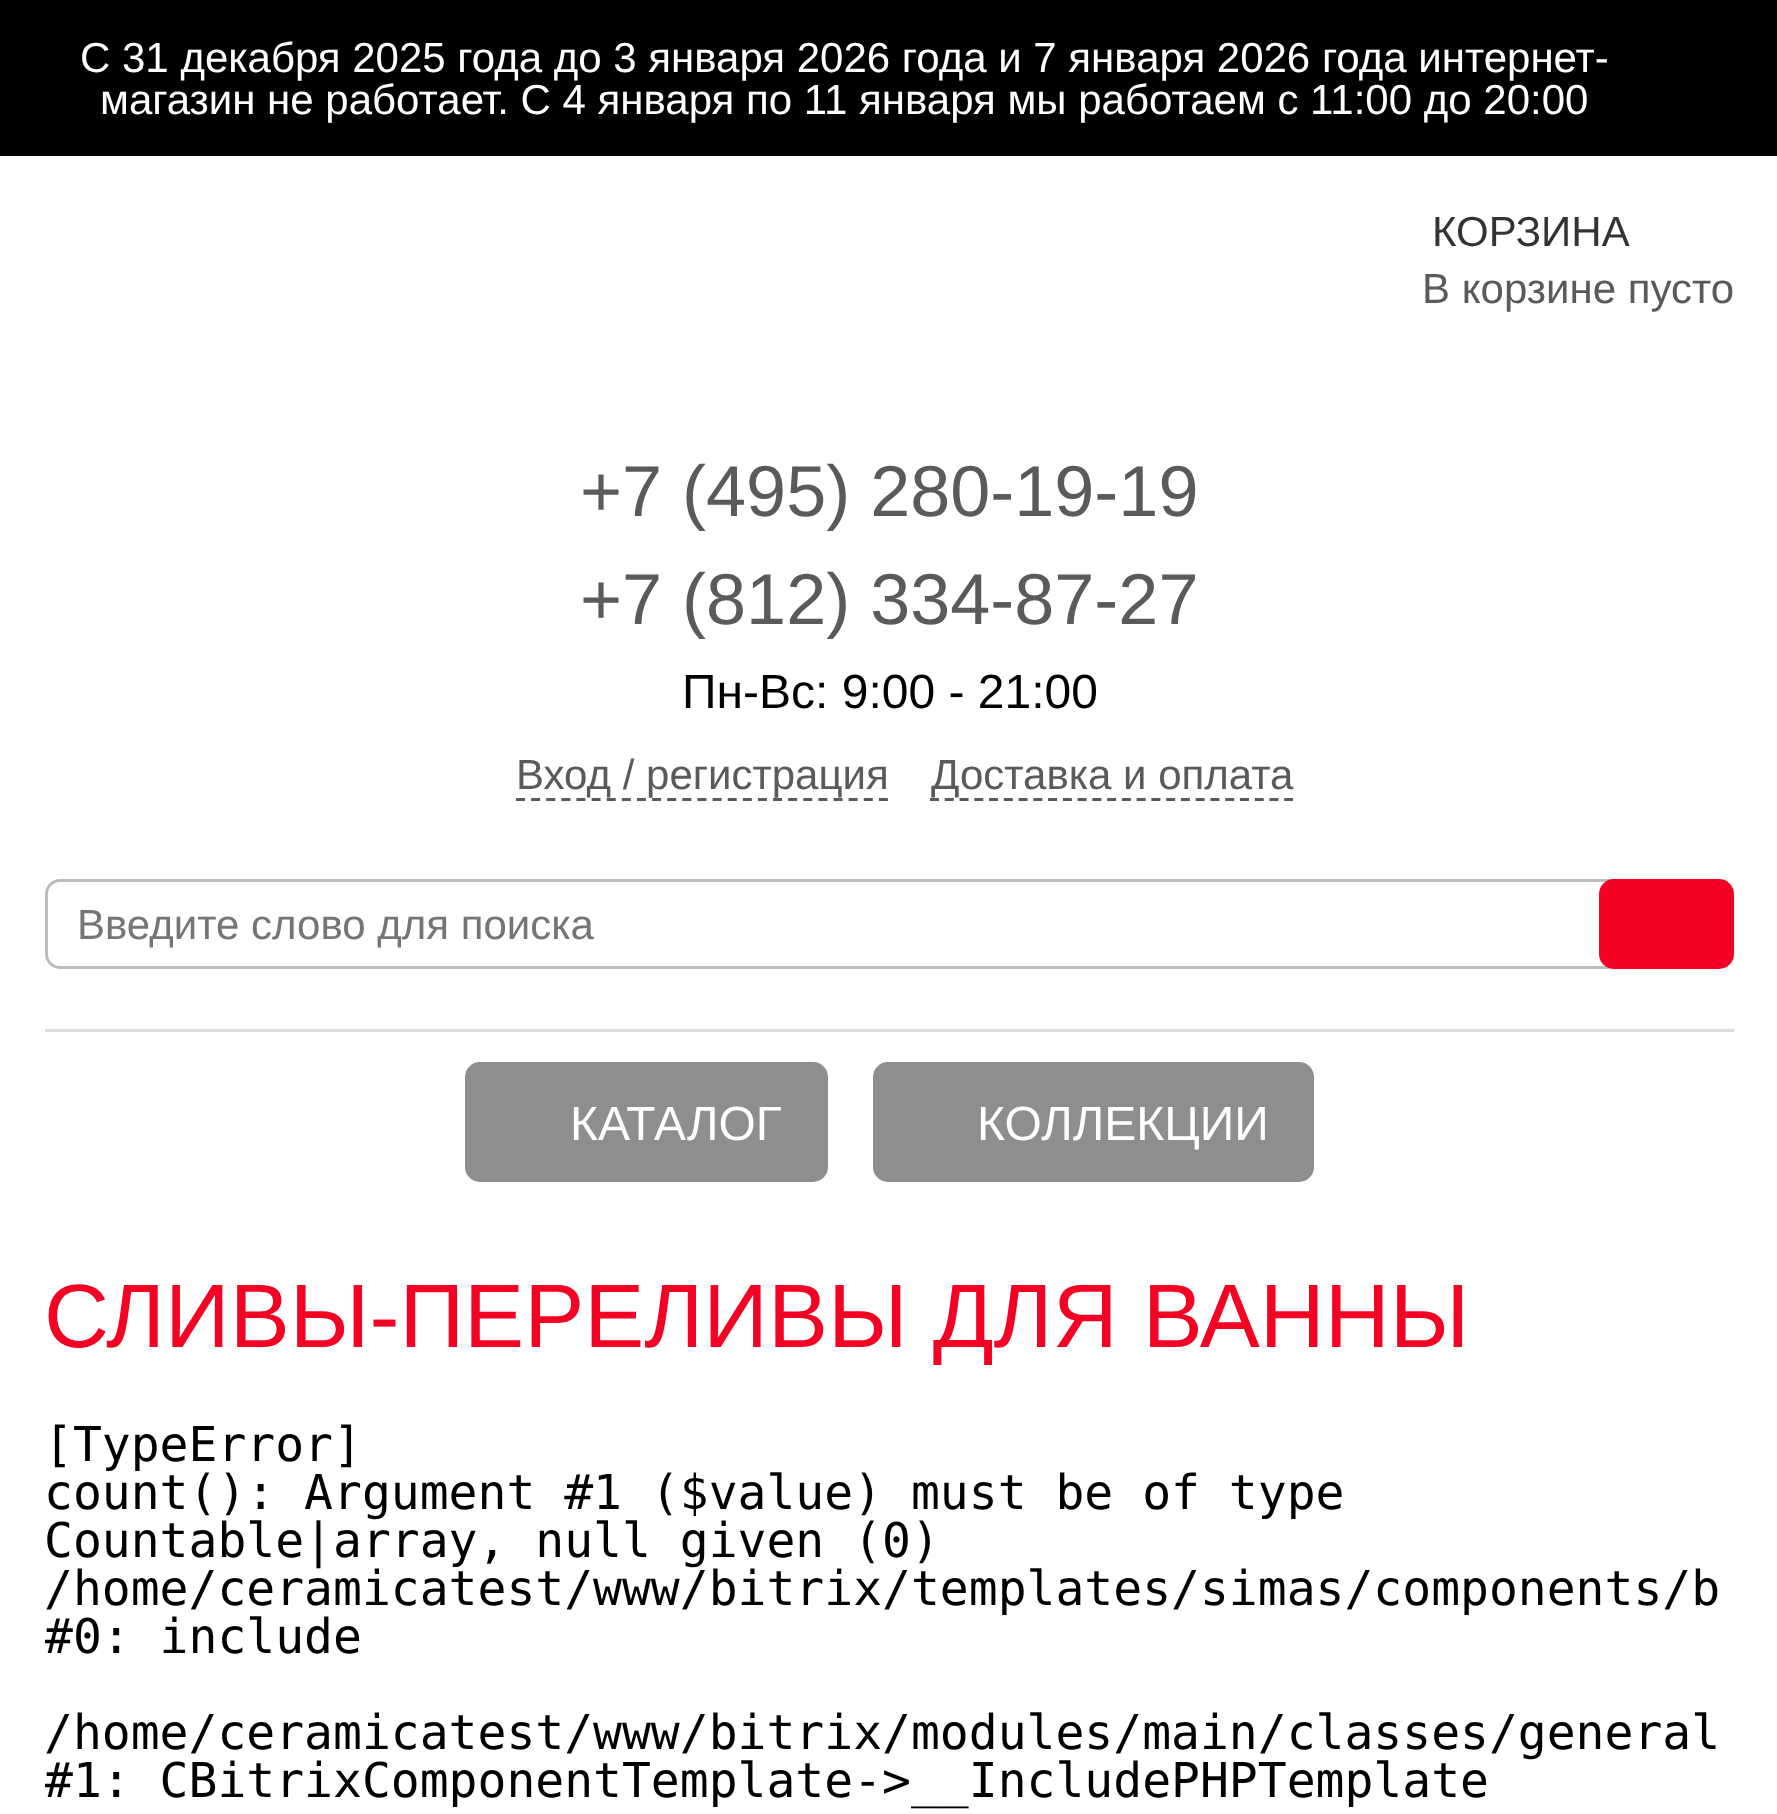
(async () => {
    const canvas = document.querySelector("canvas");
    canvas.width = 1777;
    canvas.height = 1814;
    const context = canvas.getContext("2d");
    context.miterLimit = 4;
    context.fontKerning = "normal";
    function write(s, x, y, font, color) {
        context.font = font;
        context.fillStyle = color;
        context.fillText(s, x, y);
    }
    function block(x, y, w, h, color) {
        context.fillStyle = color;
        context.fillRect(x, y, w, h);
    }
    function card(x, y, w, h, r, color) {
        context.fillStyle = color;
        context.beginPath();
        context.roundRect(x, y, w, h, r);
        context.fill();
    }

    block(0, 0, 1777, 1814, "rgb(255, 255, 255)");
    block(0, 0, 1777, 156, "rgb(0, 0, 0)");
    write("C 31 декабря 2025 года до 3 января 2026 года и 7 января 2026 года интернет-", 80, 72, "42px Liberation Sans", "rgb(255, 255, 255)");
    write("магазин не работает. С 4 января по 11 января мы работаем с 11:00 до 20:00", 100, 114, "42px Liberation Sans", "rgb(255, 255, 255)");
    write("КОРЗИНА", 1432, 246, "42px Liberation Sans", "rgb(51, 51, 51)");
    write("В корзине пусто", 1422, 303, "42px Liberation Sans", "rgb(90, 90, 90)");
    write("+7 (495) 280-19-19", 580, 516, "72px Liberation Sans", "rgb(90, 90, 90)");
    write("+7 (812) 334-87-27", 580, 624, "72px Liberation Sans", "rgb(90, 90, 90)");
    write("Пн-Вс: 9:00 - 21:00", 682, 708, "48px Liberation Sans", "rgb(0, 0, 0)");
    write("Вход / регистрация", 516, 789, "42px Liberation Sans", "rgb(90, 90, 90)");
    context.beginPath();
    context.moveTo(516, 799.5);
    context.lineTo(888, 799.5);
    context.strokeStyle = "rgb(90, 90, 90)";
    context.lineWidth = 3;
    context.setLineDash([9, 6.12]);
    context.stroke();
    write("Доставка и оплата", 931, 789, "42px Liberation Sans", "rgb(90, 90, 90)");
    context.beginPath();
    context.moveTo(930, 799.5);
    context.lineTo(1293, 799.5);
    context.setLineDash([9, 5.76]);
    context.stroke();
    context.beginPath();
    context.roundRect(46.5, 880.5, 1581, 87, 13.5);
    context.strokeStyle = "rgb(189, 189, 189)";
    context.setLineDash([]);
    context.stroke();
    write("Введите слово для поиска", 77, 939, "42px Liberation Sans", "rgb(117, 117, 117)");
    card(1599, 879, 135, 90, 15, "rgb(243, 2, 36)");
    block(45, 1029, 1689, 3, "rgb(221, 221, 221)");
    card(465, 1062, 363, 120, 15, "rgb(142, 142, 142)");
    write("КАТАЛОГ", 570, 1140, "48px Liberation Sans", "rgb(255, 255, 255)");
    card(873, 1062, 441, 120, 15, "rgb(142, 142, 142)");
    write("КОЛЛЕКЦИИ", 977, 1140, "48px Liberation Sans", "rgb(255, 255, 255)");
    write("СЛИВЫ-ПЕРЕЛИВЫ ДЛЯ ВАННЫ", 44, 1347, "90px Liberation Sans", "rgb(243, 2, 36)");
    write("[TypeError]", 44, 1461, "48px DejaVu Sans Mono", "rgb(0, 0, 0)");
    write("count(): Argument #1 ($value) must be of type", 44, 1509, "48px DejaVu Sans Mono", "rgb(0, 0, 0)");
    write("Countable|array, null given (0)", 44, 1557, "48px DejaVu Sans Mono", "rgb(0, 0, 0)");
    write("/home/ceramicatest/www/bitrix/templates/simas/components/b", 44, 1605, "48px DejaVu Sans Mono", "rgb(0, 0, 0)");
    context.save();
    context.beginPath();
    context.rect(45, 1212, 1689, 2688);
    context.clip();
    write("#0: include", 44, 1653, "48px DejaVu Sans Mono", "rgb(0, 0, 0)");
    context.restore();
    write("/home/ceramicatest/www/bitrix/modules/main/classes/general", 44, 1749, "48px DejaVu Sans Mono", "rgb(0, 0, 0)");
    context.save();
    context.beginPath();
    context.rect(45, 1212, 1689, 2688);
    context.clip();
    write("#1: CBitrixComponentTemplate->__IncludePHPTemplate", 44, 1797, "48px DejaVu Sans Mono", "rgb(0, 0, 0)");
    context.restore();
})();
